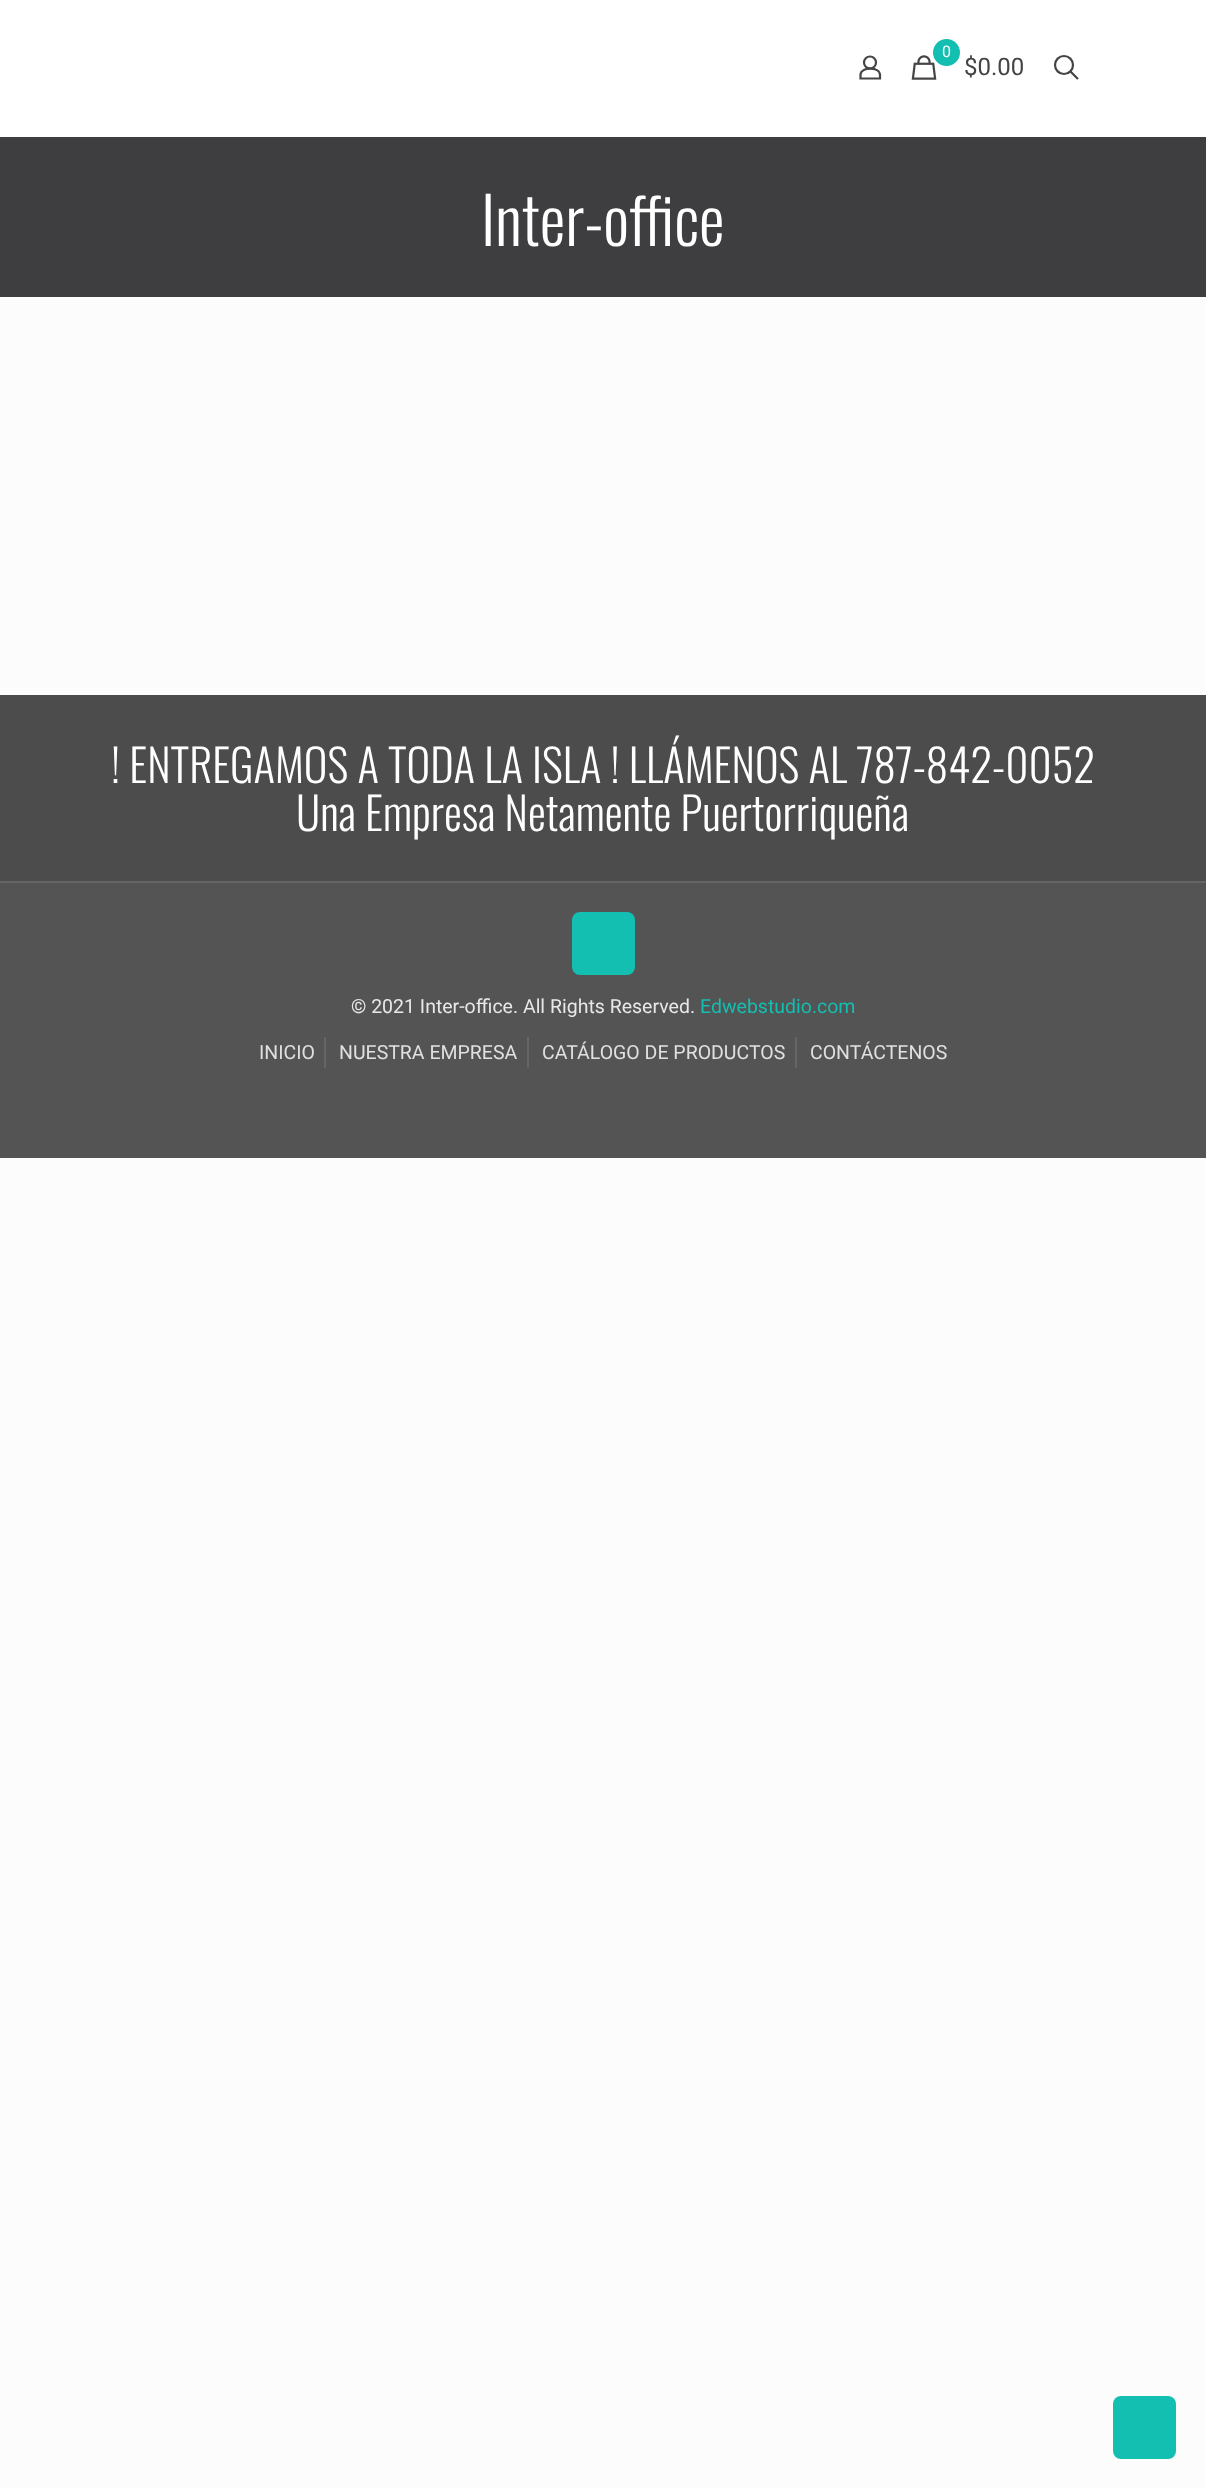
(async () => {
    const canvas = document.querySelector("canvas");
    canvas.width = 1206;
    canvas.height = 2488;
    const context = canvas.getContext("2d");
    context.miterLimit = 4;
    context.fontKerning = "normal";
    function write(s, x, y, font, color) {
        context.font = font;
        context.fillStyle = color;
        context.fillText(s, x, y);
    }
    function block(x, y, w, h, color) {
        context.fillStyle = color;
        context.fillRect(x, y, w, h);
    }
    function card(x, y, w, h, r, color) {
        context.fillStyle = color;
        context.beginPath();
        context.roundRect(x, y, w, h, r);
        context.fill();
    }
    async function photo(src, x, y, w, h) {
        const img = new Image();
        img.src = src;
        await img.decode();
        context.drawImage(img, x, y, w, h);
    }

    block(0, 0, 1206, 2488, "rgb(252, 252, 252)");
    block(0, 0, 1206, 137, "rgb(255, 255, 255)");
    context.beginPath();
    context.arc(870, 62.5, 6, 0, Math.PI * 2);
    context.strokeStyle = "rgb(68, 68, 68)";
    context.lineWidth = 2.2;
    context.stroke();
    context.beginPath();
    context.moveTo(880, 75);
    context.lineTo(880, 78.5);
    context.lineTo(860.5, 78.5);
    context.lineTo(860.5, 74);
    context.bezierCurveTo(862.5, 66.5, 880, 67, 880, 75);
    context.closePath();
    context.stroke();
    await photo("media/1.png", 911, 55, 26, 25);
    context.fillStyle = "rgb(19, 191, 177)";
    context.beginPath();
    context.arc(946.5, 52.5, 13.5, 0, Math.PI * 2);
    context.fill();
    write("0", 942, 57, "16px Roboto", "rgb(255, 255, 255)");
    write("$0.00", 964, 75, "24px Roboto", "rgb(68, 68, 68)");
    context.beginPath();
    context.arc(1064, 65, 9, 0, Math.PI * 2);
    context.stroke();
    context.beginPath();
    context.moveTo(1070.5, 71.5);
    context.lineTo(1078, 79);
    context.stroke();
    block(0, 137, 1206, 160, "rgb(62, 62, 64)");
    write("Inter-office", 481, 246, "300 64.5px Oswald", "rgb(255, 255, 255)");
    block(0, 883, 1206, 275, "rgb(84, 84, 84)");
    block(0, 695, 1206, 186, "rgb(76, 76, 76)");
    write("! ENTREGAMOS A TODA LA ISLA ! LLÁMENOS AL 787-842-0052", 111, 783, "300 45px Oswald", "rgb(255, 255, 255)");
    write("Una Empresa Netamente Puertorriqueña", 296, 831, "300 45px Oswald", "rgb(255, 255, 255)");
    block(0, 881, 1206, 2, "rgb(101, 101, 101)");
    card(572, 912, 63, 63, 8, "rgb(19, 191, 177)");
    write("© 2021 Inter-office. All Rights Reserved.", 351, 1013, "19.5px Roboto", "rgb(232, 232, 232)");
    write("Edwebstudio.com", 700, 1013, "19.5px Roboto", "rgb(19, 191, 177)");
    block(324, 1037, 2, 31, "rgb(101, 101, 101)");
    write("INICIO", 259, 1059, "19.5px Roboto", "rgb(224, 224, 224)");
    block(527, 1037, 2, 31, "rgb(101, 101, 101)");
    write("NUESTRA EMPRESA", 339, 1059, "19.5px Roboto", "rgb(224, 224, 224)");
    block(795, 1037, 2, 31, "rgb(101, 101, 101)");
    write("CATÁLOGO DE PRODUCTOS", 542, 1059, "19.5px Roboto", "rgb(224, 224, 224)");
    write("CONTÁCTENOS", 810, 1059, "19.5px Roboto", "rgb(224, 224, 224)");
    card(1113, 2396, 63, 63, 8, "rgb(19, 191, 177)");
})();
